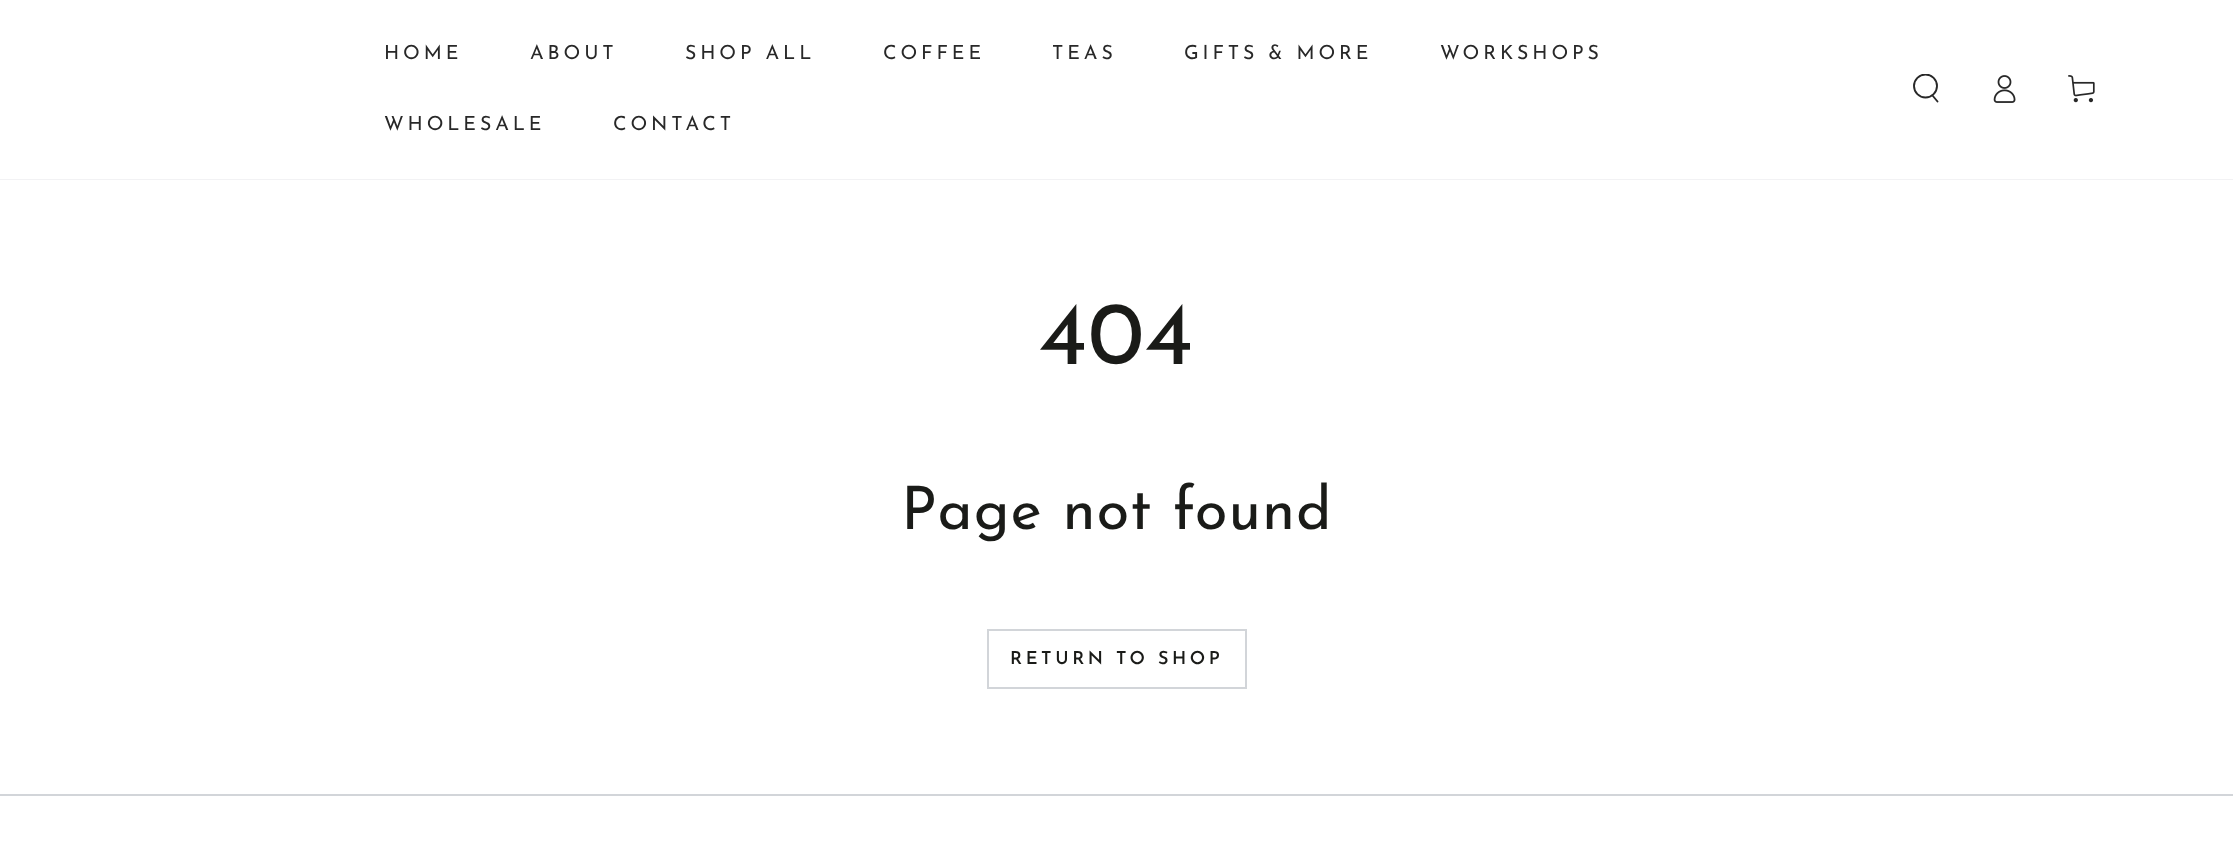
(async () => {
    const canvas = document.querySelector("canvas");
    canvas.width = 2233;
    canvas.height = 857;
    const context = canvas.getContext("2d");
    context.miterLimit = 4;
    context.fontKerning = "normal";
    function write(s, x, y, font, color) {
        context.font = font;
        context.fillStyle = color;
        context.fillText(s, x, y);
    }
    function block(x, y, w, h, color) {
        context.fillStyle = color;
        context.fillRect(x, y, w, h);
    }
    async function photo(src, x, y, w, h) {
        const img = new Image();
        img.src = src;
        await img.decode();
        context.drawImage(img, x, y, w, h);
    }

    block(0, 0, 2233, 857, "rgb(255, 255, 255)");
    context.fillStyle = "rgb(242, 242, 244)";
    context.beginPath();
    context.moveTo(0, 178);
    context.lineTo(0, 180);
    context.lineTo(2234, 180);
    context.lineTo(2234, 2);
    context.lineTo(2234, 178);
    context.closePath();
    context.fill();
    context.letterSpacing = "3.9px";
    write("HOME", 384, 59, "19.5px Josefin Sans", "rgb(40, 40, 40)");
    write("ABOUT", 530, 59, "19.5px Josefin Sans", "rgb(40, 40, 40)");
    write("SHOP ALL", 685, 59, "19.5px Josefin Sans", "rgb(40, 40, 40)");
    write("COFFEE", 883, 59, "19.5px Josefin Sans", "rgb(40, 40, 40)");
    write("TEAS", 1052, 59, "19.5px Josefin Sans", "rgb(40, 40, 40)");
    write("GIFTS & MORE", 1184, 59, "19.5px Josefin Sans", "rgb(40, 40, 40)");
    write("WORKSHOPS", 1440, 59, "19.5px Josefin Sans", "rgb(40, 40, 40)");
    write("WHOLESALE", 384, 130, "19.5px Josefin Sans", "rgb(40, 40, 40)");
    write("CONTACT", 613, 130, "19.5px Josefin Sans", "rgb(40, 40, 40)");
    context.save();
    context.beginPath();
    context.rect(1911, 74, 30, 30);
    context.clip();
    context.beginPath();
    context.arc(1925.5, 86, 11.5, 0, Math.PI * 2);
    context.strokeStyle = "rgb(40, 40, 40)";
    context.lineWidth = 1.9;
    context.stroke();
    context.restore();
    context.beginPath();
    context.moveTo(1932.5, 95.5);
    context.lineTo(1937.5, 101.5);
    context.strokeStyle = "rgb(40, 40, 40)";
    context.lineWidth = 1.9;
    context.lineCap = "round";
    context.stroke();
    await photo("media/1.png", 1993, 75, 23, 28);
    await photo("media/2.png", 2068, 75, 27, 28);
    block(0, 178, 2233, 1, "rgb(255, 255, 255)");
    context.letterSpacing = "0.9px";
    write("404", 1039, 364, "90px Josefin Sans", "rgb(26, 27, 24)");
    write("Page not found", 901, 529, "60px Josefin Sans", "rgb(26, 27, 24)");
    context.strokeStyle = "rgb(210, 213, 217)";
    context.lineWidth = 2;
    context.strokeRect(988, 630, 258, 58);
    context.letterSpacing = "3.6px";
    write("RETURN TO SHOP", 1010, 664, "600 18px Josefin Sans", "rgb(26, 27, 24)");
    block(0, 794, 2233, 2, "rgb(210, 213, 217)");
})();
